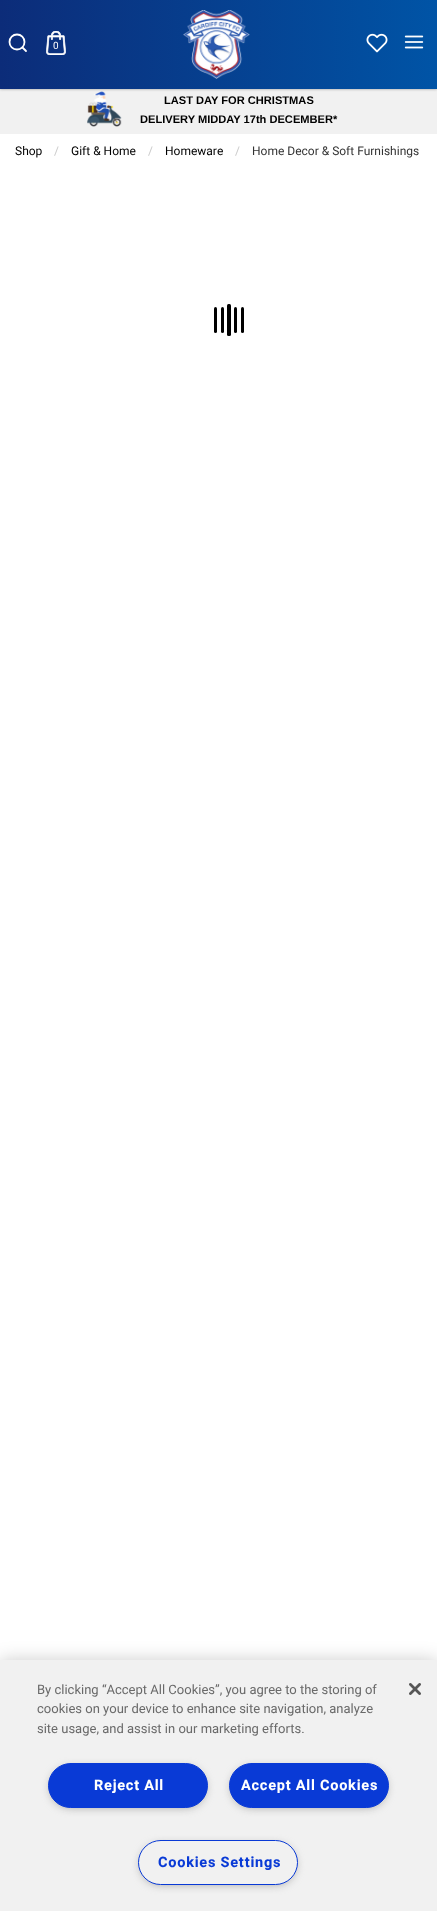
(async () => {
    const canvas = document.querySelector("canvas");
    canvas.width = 437;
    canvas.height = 1911;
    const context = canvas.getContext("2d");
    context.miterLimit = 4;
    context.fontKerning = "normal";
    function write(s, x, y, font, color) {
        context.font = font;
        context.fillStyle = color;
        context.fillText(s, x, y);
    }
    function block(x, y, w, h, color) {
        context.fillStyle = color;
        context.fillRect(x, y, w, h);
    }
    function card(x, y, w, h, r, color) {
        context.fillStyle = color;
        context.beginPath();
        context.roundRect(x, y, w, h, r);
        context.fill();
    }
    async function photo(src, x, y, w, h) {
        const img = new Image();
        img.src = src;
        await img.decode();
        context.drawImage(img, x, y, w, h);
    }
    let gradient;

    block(0, 0, 437, 1911, "rgb(255, 255, 255)");
    block(0, 89, 437, 45, "rgb(241, 241, 241)");
    context.fillStyle = "rgb(149, 149, 149)";
    context.filter = "blur(1.5px)";
    context.beginPath();
    context.rect(0, 0, 437, 89);
    context.fill();
    context.filter = "none";
    gradient = context.createLinearGradient(0, 45, 437, 44);
    gradient.addColorStop(0, "rgb(12, 44, 121)");
    gradient.addColorStop(1, "rgb(0, 84, 166)");
    context.fillStyle = gradient;
    context.fillRect(0, 0, 437, 89);
    context.beginPath();
    context.arc(17, 42, 7.5, 0, Math.PI * 2);
    context.strokeStyle = "rgb(255, 255, 255)";
    context.lineWidth = 1.8;
    context.stroke();
    context.beginPath();
    context.moveTo(26, 51);
    context.lineTo(22.5, 47.5);
    context.lineCap = "round";
    context.lineJoin = "round";
    context.stroke();
    await photo("media/1.png", 46, 31, 20, 24);
    write("0", 53, 49, "10px Heebo", "rgb(255, 255, 255)");
    await photo("media/2.png", 183, 10, 67, 69);
    await photo("media/3.png", 366, 33, 22, 20);
    await photo("media/4.png", 404, 35, 20, 14);
    await photo("media/5.png", 87, 91, 35, 36);
    write("LAST DAY FOR CHRISTMAS", 164, 104, "bold 11.1px Liberation Sans", "rgb(0, 0, 0)");
    write("DELIVERY MIDDAY 17th DECEMBER*", 140, 123, "bold 11.1px Liberation Sans", "rgb(0, 0, 0)");
    write("Shop", 15, 155, "12px Heebo", "rgb(0, 0, 0)");
    write("/", 54, 155, "12px Heebo", "rgb(202, 202, 202)");
    write("Gift & Home", 71, 155, "12px Heebo", "rgb(0, 0, 0)");
    write("/", 148, 155, "12px Heebo", "rgb(202, 202, 202)");
    write("Homeware", 165, 155, "12px Heebo", "rgb(0, 0, 0)");
    write("/", 235, 155, "12px Heebo", "rgb(202, 202, 202)");
    write("Home Decor & Soft Furnishings", 252, 155, "12px Heebo", "rgb(51, 51, 51)");
    card(214, 307, 3, 26, 1.5, "rgb(0, 0, 0)");
    card(221, 307, 3, 26, 1.5, "rgb(0, 0, 0)");
    card(227, 304, 4, 32, 1.5, "rgb(0, 0, 0)");
    card(234, 307, 3, 26, 1.5, "rgb(0, 0, 0)");
    card(241, 307, 3, 26, 1.5, "rgb(0, 0, 0)");
    context.fillStyle = "rgba(0, 0, 0, 0.2)";
    context.filter = "blur(9px)";
    context.beginPath();
    context.rect(0, 1660, 437, 251);
    context.fill();
    context.filter = "none";
    block(0, 1660, 437, 251, "rgb(241, 241, 241)");
    write("By clicking “Accept All Cookies”, you agree to the storing of", 37, 1694, "13px Heebo", "rgb(105, 105, 105)");
    write("cookies on your device to enhance site navigation, analyze", 37, 1713, "13px Heebo", "rgb(105, 105, 105)");
    write("site usage, and assist in our marketing efforts.", 37, 1733, "13px Heebo", "rgb(105, 105, 105)");
    context.fillStyle = "rgb(153, 153, 153)";
    context.filter = "blur(5px)";
    context.beginPath();
    context.roundRect(51, 1768, 154, 39, 19.5);
    context.fill();
    context.filter = "none";
    context.fillStyle = "rgb(9, 58, 214)";
    context.beginPath();
    context.roundRect(48.5, 1763.5, 159, 44, 22);
    context.fill();
    context.strokeStyle = "rgb(9, 58, 214)";
    context.lineWidth = 1;
    context.lineJoin = "miter";
    context.stroke();
    context.letterSpacing = "0.75px";
    write("Reject All", 94, 1790, "bold 14.5px Heebo", "rgb(255, 255, 255)");
    context.fillStyle = "rgb(153, 153, 153)";
    context.filter = "blur(5px)";
    context.beginPath();
    context.roundRect(232, 1768, 154, 39, 19.5);
    context.fill();
    context.filter = "none";
    context.fillStyle = "rgb(9, 58, 214)";
    context.beginPath();
    context.roundRect(229.5, 1763.5, 159, 44, 22);
    context.fill();
    context.stroke();
    write("Accept All Cookies", 241, 1790, "bold 14.5px Heebo", "rgb(255, 255, 255)");
    context.fillStyle = "rgb(153, 153, 153)";
    context.filter = "blur(5px)";
    context.beginPath();
    context.roundRect(141, 1845, 154, 39, 19.5);
    context.fill();
    context.filter = "none";
    context.fillStyle = "rgb(241, 241, 241)";
    context.beginPath();
    context.roundRect(138.5, 1840.5, 159, 44, 22);
    context.fill();
    context.stroke();
    write("Cookies Settings", 158, 1867, "bold 14.5px Heebo", "rgb(9, 58, 214)");
    await photo("media/6.png", 409, 1683, 12, 12);
})();
